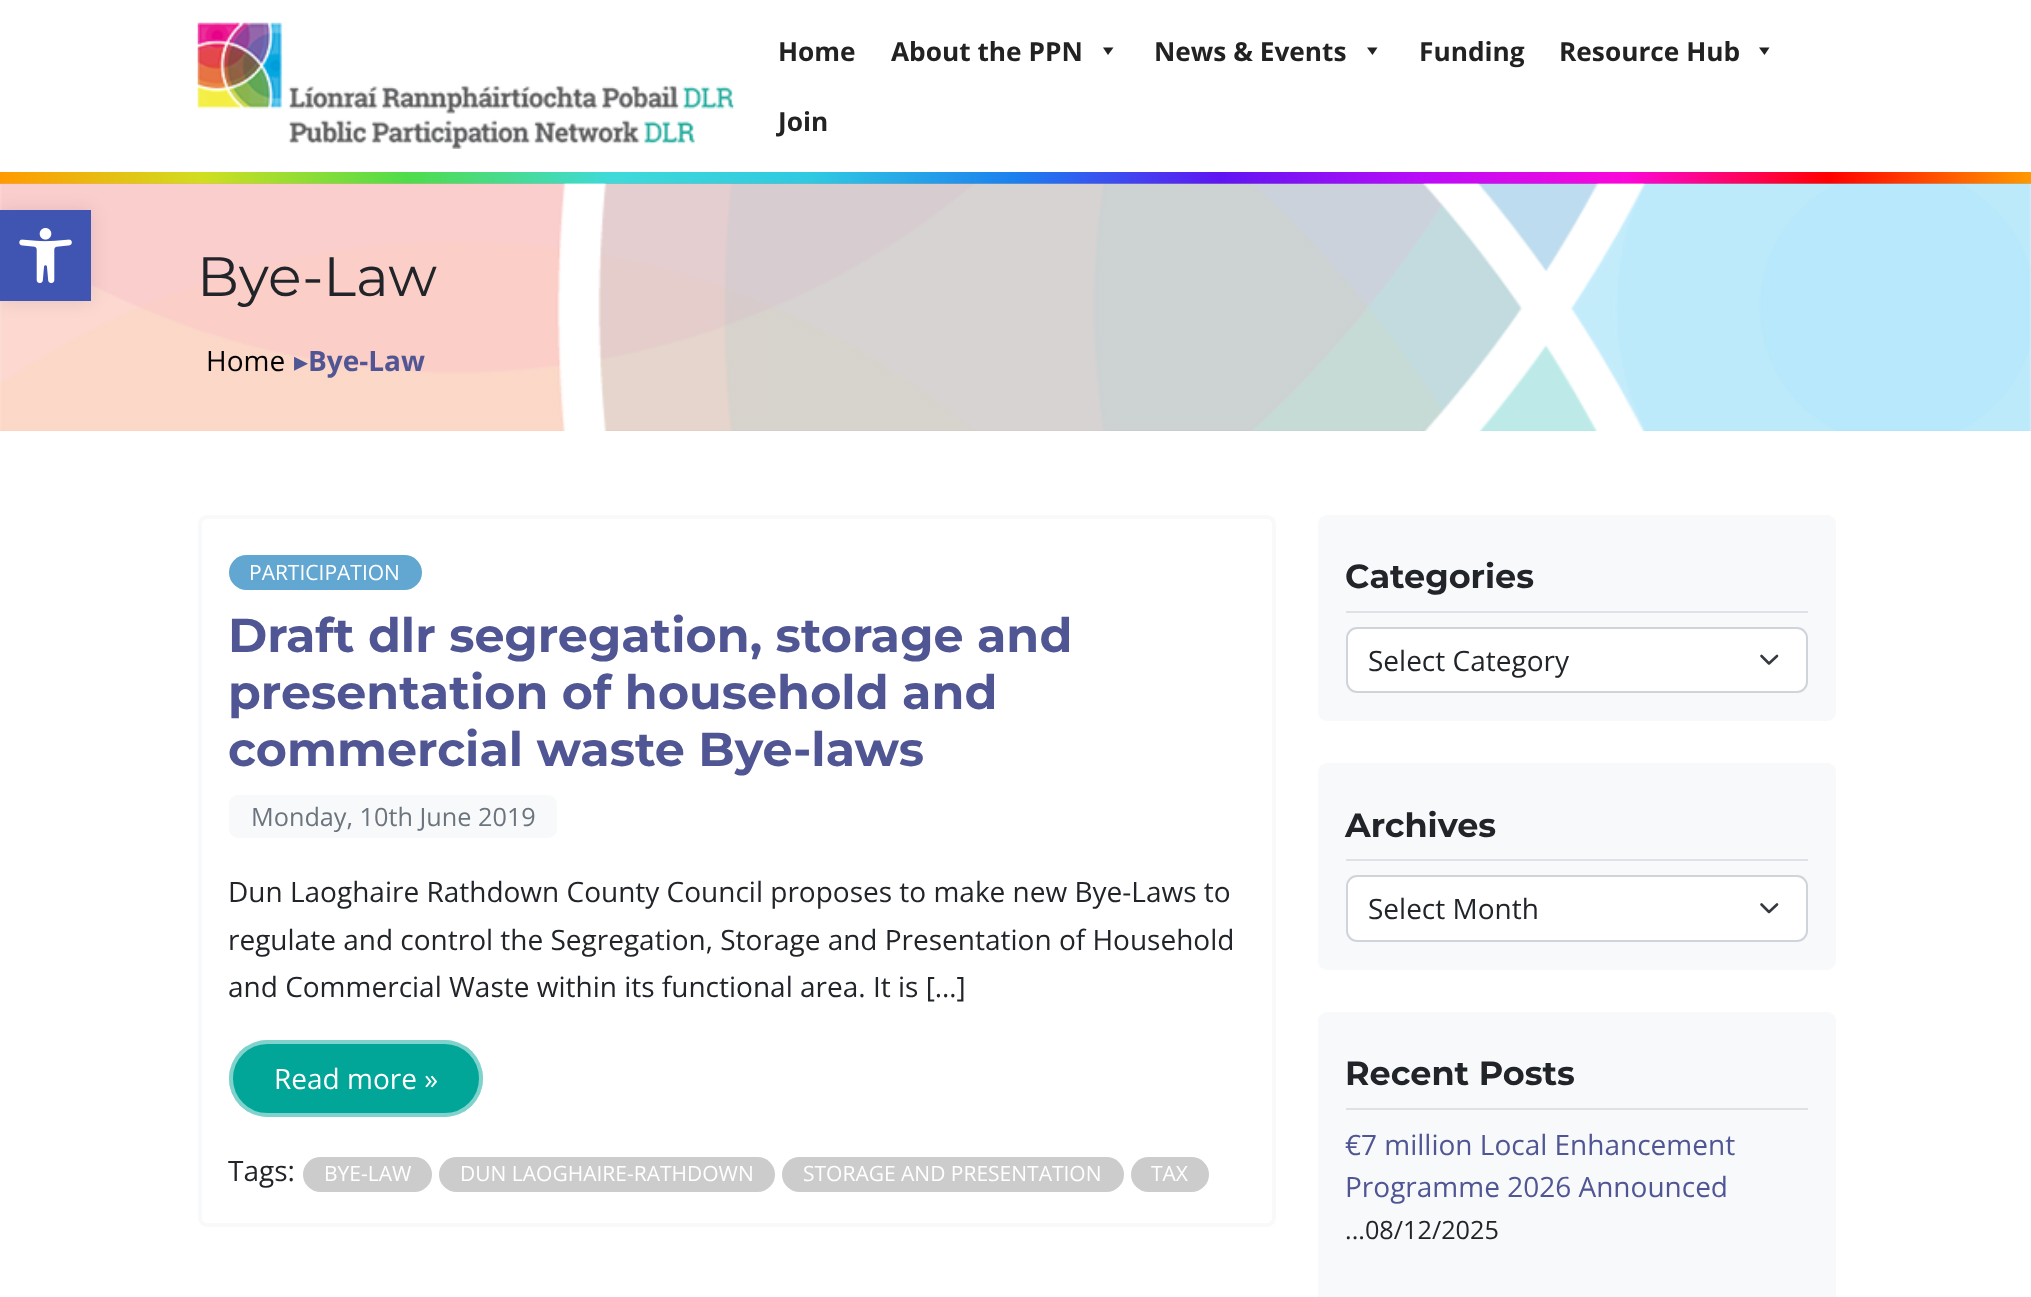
(async () => {
    const canvas = document.querySelector("canvas");
    canvas.width = 2031;
    canvas.height = 1297;
    const context = canvas.getContext("2d");
    context.miterLimit = 4;
    context.fontKerning = "normal";
    function write(s, x, y, font, color) {
        context.font = font;
        context.fillStyle = color;
        context.fillText(s, x, y);
    }
    function block(x, y, w, h, color) {
        context.fillStyle = color;
        context.fillRect(x, y, w, h);
    }
    function card(x, y, w, h, r, color) {
        context.fillStyle = color;
        context.beginPath();
        context.roundRect(x, y, w, h, r);
        context.fill();
    }
    async function photo(src, x, y, w, h) {
        const img = new Image();
        img.src = src;
        await img.decode();
        context.drawImage(img, x, y, w, h);
    }
    let gradient;

    block(0, 0, 2031, 1297, "rgb(255, 255, 255)");
    gradient = context.createLinearGradient(0, 178, 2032, 178);
    gradient.addColorStop(0, "rgb(255, 154, 0)");
    gradient.addColorStop(0.1, "rgb(208, 222, 33)");
    gradient.addColorStop(0.2, "rgb(79, 220, 74)");
    gradient.addColorStop(0.3, "rgb(63, 218, 216)");
    gradient.addColorStop(0.4, "rgb(47, 201, 226)");
    gradient.addColorStop(0.5, "rgb(28, 127, 238)");
    gradient.addColorStop(0.6, "rgb(95, 21, 242)");
    gradient.addColorStop(0.7, "rgb(186, 12, 248)");
    gradient.addColorStop(0.8, "rgb(251, 7, 217)");
    gradient.addColorStop(0.9, "rgb(255, 0, 0)");
    gradient.addColorStop(1, "rgb(255, 154, 0)");
    context.fillStyle = gradient;
    context.fillRect(0, 172, 2031, 12);
    await photo("media/3.png", 0, 183, 2031, 248);
    context.fillStyle = "rgba(0, 0, 0, 0.1)";
    context.filter = "blur(9px)";
    context.beginPath();
    context.rect(0, 210, 91, 91);
    context.fill();
    context.filter = "none";
    block(0, 210, 91, 91, "rgb(64, 84, 178)");
    await photo("media/1.png", 19, 228, 53, 56);
    await photo("media/2.png", 197, 22, 537, 127);
    write("Home", 778, 61, "bold 26.25px Open Sans", "rgb(34, 34, 34)");
    write("About the PPN", 891, 61, "bold 26.25px Open Sans", "rgb(34, 34, 34)");
    context.beginPath();
    context.moveTo(1113.5, 47.5);
    context.lineTo(1108, 55);
    context.lineTo(1103, 47.5);
    context.closePath();
    context.fill();
    write("News & Events", 1154, 61, "bold 26.25px Open Sans", "rgb(34, 34, 34)");
    context.beginPath();
    context.moveTo(1377.5, 47.5);
    context.lineTo(1372.5, 55);
    context.lineTo(1367, 47.5);
    context.closePath();
    context.fill();
    write("Funding", 1419, 61, "bold 26.25px Open Sans", "rgb(34, 34, 34)");
    write("Resource Hub", 1559, 61, "bold 26.25px Open Sans", "rgb(34, 34, 34)");
    context.beginPath();
    context.moveTo(1769.5, 47.5);
    context.lineTo(1764.5, 55);
    context.lineTo(1759, 47.5);
    context.closePath();
    context.fill();
    write("Join", 778, 131, "bold 26.25px Open Sans", "rgb(34, 34, 34)");
    write("Bye-Law", 197, 296, "55.5px Montserrat", "rgb(33, 37, 41)");
    write("Home", 206, 371, "28px Open Sans", "rgb(0, 0, 0)");
    write("▸", 294, 371, "28px DejaVu Sans", "rgb(80, 85, 147)");
    write("Bye-Law", 308, 371, "bold 28px Open Sans", "rgb(80, 85, 147)");
    context.beginPath();
    context.roundRect(200, 517, 1074, 708, 7);
    context.strokeStyle = "rgb(248, 249, 250)";
    context.lineWidth = 4;
    context.stroke();
    card(229, 555, 193, 35, 17.5, "rgb(98, 167, 210)");
    write("PARTICIPATION", 249, 580, "21px Open Sans", "rgb(255, 255, 255)");
    write("Draft dlr segregation, storage and", 228, 652, "bold 47.6px Montserrat", "rgb(80, 85, 147)");
    write("presentation of household and", 228, 709, "bold 47.6px Montserrat", "rgb(80, 85, 147)");
    write("commercial waste Bye-laws", 228, 766, "bold 47.6px Montserrat", "rgb(80, 85, 147)");
    card(229, 795, 328, 43, 9, "rgb(248, 249, 250)");
    write("Monday, 10th June 2019", 251, 826, "25.25px Open Sans", "rgb(108, 117, 125)");
    write("Dun Laoghaire Rathdown County Council proposes to make new Bye-Laws to", 228, 902, "28px Open Sans", "rgb(33, 37, 41)");
    write("regulate and control the Segregation, Storage and Presentation of Household", 228, 950, "28px Open Sans", "rgb(33, 37, 41)");
    write("and Commercial Waste within its functional area. It is […]", 228, 997, "28px Open Sans", "rgb(33, 37, 41)");
    card(229, 1040, 254, 77, 38.5, "rgb(1, 166, 152)");
    context.beginPath();
    context.roundRect(231, 1042, 250, 73, 36.5);
    context.strokeStyle = "rgba(255, 255, 255, 0.5)";
    context.stroke();
    write("Read more »", 274, 1089, "28px Open Sans", "rgb(255, 255, 255)");
    write("Tags:", 228, 1181, "28px Open Sans", "rgb(33, 37, 41)");
    card(303, 1157, 129, 35, 17.5, "rgb(204, 204, 204)");
    write("BYE-LAW", 324, 1181, "21px Open Sans", "rgb(255, 255, 255)");
    card(439, 1157, 336, 35, 17.5, "rgb(204, 204, 204)");
    write("DUN LAOGHAIRE-RATHDOWN", 460, 1181, "21px Open Sans", "rgb(255, 255, 255)");
    card(782, 1157, 342, 35, 17.5, "rgb(204, 204, 204)");
    write("STORAGE AND PRESENTATION", 803, 1181, "21px Open Sans", "rgb(255, 255, 255)");
    card(1131, 1157, 78, 35, 17.5, "rgb(204, 204, 204)");
    write("TAX", 1151, 1181, "21px Open Sans", "rgb(255, 255, 255)");
    card(1318, 515, 518, 206, 9, "rgb(248, 249, 250)");
    block(1346, 611, 462, 2, "rgb(222, 226, 230)");
    write("Categories", 1345, 588, "bold 33.5px Montserrat", "rgb(33, 37, 41)");
    card(1346, 627, 462, 66, 11, "rgb(255, 255, 255)");
    context.beginPath();
    context.moveTo(1761.5, 656);
    context.lineTo(1769, 663.5);
    context.lineTo(1777, 656);
    context.strokeStyle = "rgb(52, 58, 64)";
    context.lineWidth = 2.6;
    context.lineCap = "round";
    context.lineJoin = "round";
    context.stroke();
    context.beginPath();
    context.roundRect(1347, 628, 460, 64, 10);
    context.strokeStyle = "rgb(206, 212, 218)";
    context.lineWidth = 2;
    context.lineJoin = "miter";
    context.stroke();
    write("Select Category", 1368, 671, "28px Open Sans", "rgb(33, 37, 41)");
    card(1318, 763, 518, 207, 9, "rgb(248, 249, 250)");
    block(1346, 859, 462, 2, "rgb(222, 226, 230)");
    write("Archives", 1345, 837, "bold 33.5px Montserrat", "rgb(33, 37, 41)");
    card(1346, 875, 462, 67, 11, "rgb(255, 255, 255)");
    context.beginPath();
    context.moveTo(1761.5, 904.5);
    context.lineTo(1769, 912);
    context.lineTo(1777, 904.5);
    context.strokeStyle = "rgb(52, 58, 64)";
    context.lineWidth = 2.6;
    context.lineJoin = "round";
    context.stroke();
    context.beginPath();
    context.roundRect(1347, 876, 460, 65, 10);
    context.strokeStyle = "rgb(206, 212, 218)";
    context.lineWidth = 2;
    context.lineJoin = "miter";
    context.stroke();
    write("Select Month", 1368, 919, "28px Open Sans", "rgb(33, 37, 41)");
    card(1318, 1012, 518, 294, 9, "rgb(248, 249, 250)");
    block(1346, 1108, 462, 2, "rgb(222, 226, 230)");
    write("Recent Posts", 1345, 1085, "bold 33.5px Montserrat", "rgb(33, 37, 41)");
    write("€7 million Local Enhancement", 1345, 1155, "28px Open Sans", "rgb(80, 85, 147)");
    write("Programme 2026 Announced", 1345, 1197, "28px Open Sans", "rgb(80, 85, 147)");
    write("...08/12/2025", 1345, 1239, "25.25px Open Sans", "rgb(33, 37, 41)");
})();
